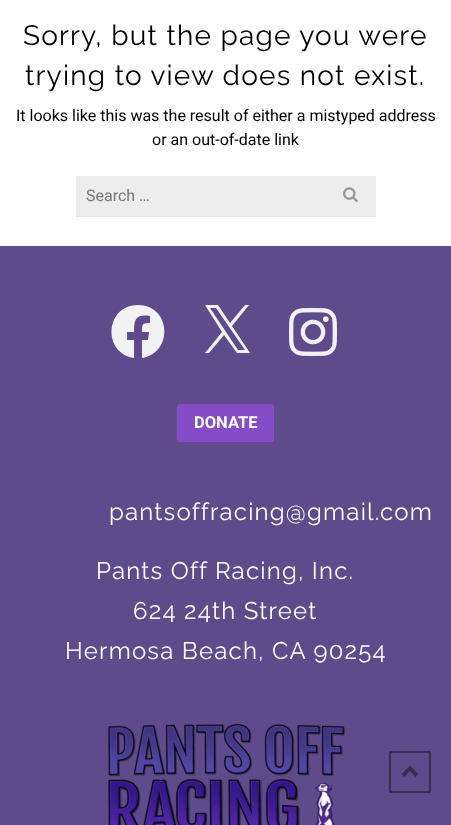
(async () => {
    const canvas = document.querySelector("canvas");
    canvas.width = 451;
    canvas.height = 825;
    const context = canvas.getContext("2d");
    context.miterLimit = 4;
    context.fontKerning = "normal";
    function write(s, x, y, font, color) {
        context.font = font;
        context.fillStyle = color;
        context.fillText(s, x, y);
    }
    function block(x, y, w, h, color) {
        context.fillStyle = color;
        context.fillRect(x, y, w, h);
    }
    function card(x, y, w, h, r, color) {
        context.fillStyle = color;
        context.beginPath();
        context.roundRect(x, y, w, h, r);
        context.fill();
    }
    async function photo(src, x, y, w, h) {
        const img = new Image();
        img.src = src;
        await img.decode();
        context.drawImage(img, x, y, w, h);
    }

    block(0, 0, 451, 825, "rgb(255, 255, 255)");
    context.letterSpacing = "1.2px";
    write("Sorry, but the page you were", 23, 45, "28px Raleway", "rgb(0, 0, 0)");
    write("trying to view does not exist.", 25, 85, "28px Raleway", "rgb(0, 0, 0)");
    context.letterSpacing = "0px";
    write("It looks like this was the result of either a mistyped address", 16, 121, "16px Roboto", "rgb(0, 0, 0)");
    write("or an out-of-date link", 152, 145, "16px Roboto", "rgb(0, 0, 0)");
    block(76, 216, 300, 1, "rgb(230, 230, 230)");
    block(76, 176, 300, 40, "rgb(237, 237, 237)");
    write("Search …", 86, 201, "16px Roboto", "rgb(117, 117, 117)");
    await photo("media/1.png", 343, 187, 15, 16);
    block(0, 246, 451, 579, "rgb(95, 75, 139)");
    context.fillStyle = "rgb(242, 242, 242)";
    context.beginPath();
    context.moveTo(138, 305);
    context.bezierCurveTo(105, 305, 102, 353, 134, 358);
    context.lineTo(134, 340);
    context.lineTo(127, 340);
    context.lineTo(127, 332);
    context.lineTo(134, 332);
    context.bezierCurveTo(134, 319, 136, 314, 150, 316);
    context.lineTo(150, 323);
    context.bezierCurveTo(142, 323, 142, 324, 142, 332);
    context.lineTo(149, 332);
    context.lineTo(148, 340);
    context.lineTo(142, 340);
    context.lineTo(142, 358);
    context.bezierCurveTo(174, 353, 171, 305, 138, 305);
    context.closePath();
    context.fill();
    context.beginPath();
    context.moveTo(232, 326);
    context.lineTo(249, 305);
    context.lineTo(245, 305);
    context.lineTo(230, 323);
    context.lineTo(218, 305);
    context.lineTo(205, 305);
    context.lineTo(222, 332);
    context.lineTo(205, 353);
    context.lineTo(209, 353);
    context.lineTo(224, 335);
    context.lineTo(237, 353);
    context.lineTo(250, 353);
    context.closePath();
    context.moveTo(226, 332);
    context.lineTo(210, 308);
    context.lineTo(216, 308);
    context.lineTo(245, 350);
    context.lineTo(238, 350);
    context.closePath();
    context.fill();
    await photo("media/2.png", 289, 308, 48, 48);
    card(177, 404, 97, 38, 3, "rgb(134, 76, 200)");
    write("DONATE", 194, 428, "bold 16.5px Roboto", "rgb(255, 255, 255)");
    context.letterSpacing = "1.2px";
    write("pantsoffracing@gmail.com", 109, 520, "24px Raleway", "rgb(255, 255, 255)");
    write("Pants Off Racing, Inc.", 96, 579, "24px Raleway", "rgb(255, 255, 255)");
    write("624 24th Street", 133, 619, "24px Raleway", "rgb(255, 255, 255)");
    write("Hermosa Beach, CA 90254", 65, 659, "24px Raleway", "rgb(255, 255, 255)");
    await photo("media/3.png", 108, 723, 237, 102);
    context.strokeStyle = "rgb(57, 45, 83)";
    context.lineWidth = 2;
    context.strokeRect(390, 752, 40, 40);
    context.fillStyle = "rgb(57, 45, 83)";
    context.beginPath();
    context.moveTo(401.5, 774);
    context.lineTo(410, 765.5);
    context.lineTo(410, 771);
    context.lineTo(404.5, 777);
    context.closePath();
    context.moveTo(410, 765.5);
    context.lineTo(418.5, 774);
    context.lineTo(415.5, 777);
    context.lineTo(410, 771);
    context.closePath();
    context.fill();
})();
